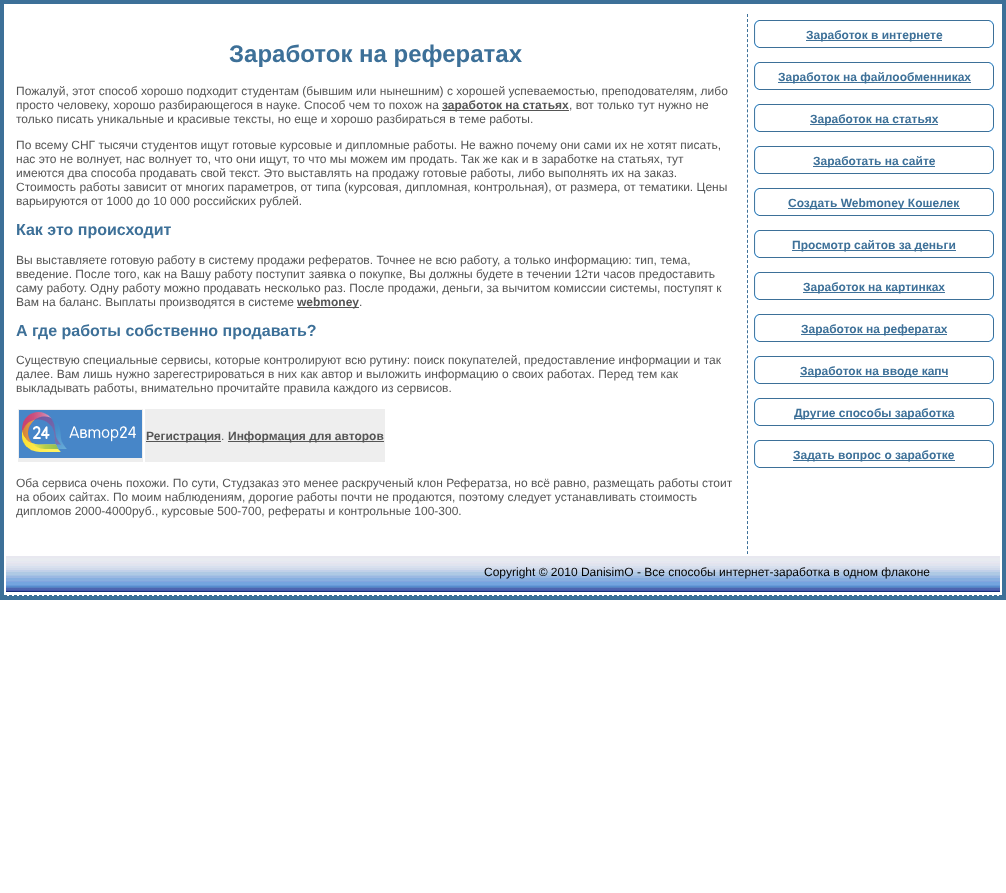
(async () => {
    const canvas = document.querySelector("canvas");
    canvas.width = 1006;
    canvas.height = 893;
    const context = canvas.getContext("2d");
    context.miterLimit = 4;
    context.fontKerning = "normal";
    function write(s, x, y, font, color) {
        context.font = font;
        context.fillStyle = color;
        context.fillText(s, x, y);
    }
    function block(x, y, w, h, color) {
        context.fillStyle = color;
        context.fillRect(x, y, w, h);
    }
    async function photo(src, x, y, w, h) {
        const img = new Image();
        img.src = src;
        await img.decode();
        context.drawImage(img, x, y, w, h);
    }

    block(0, 0, 1006, 893, "rgb(255, 255, 255)");
    context.strokeStyle = "rgb(61, 112, 152)";
    context.lineWidth = 4;
    context.strokeRect(2, 2, 1002, 596);
    context.beginPath();
    context.moveTo(4, 595.5);
    context.lineTo(1002, 595.5);
    context.lineWidth = 1;
    context.setLineDash([3, 2]);
    context.stroke();
    write("Заработок на рефератах", 229, 62, "bold 24px Liberation Sans", "rgb(61, 112, 152)");
    write("Пожалуй, этот способ хорошо подходит студентам (бывшим или нынешним) с хорошей успеваемостью, преподователям, либо", 16, 95, "12px Liberation Sans", "rgb(85, 85, 85)");
    write("просто человеку, хорошо разбирающегося в науке. Способ чем то похож на", 16, 109, "12px Liberation Sans", "rgb(85, 85, 85)");
    block(442, 110, 127, 1, "rgb(85, 85, 85)");
    write("заработок на статьях", 442, 109, "bold 12px Liberation Sans", "rgb(85, 85, 85)");
    write(", вот только тут нужно не", 569, 109, "12px Liberation Sans", "rgb(85, 85, 85)");
    write("только писать уникальные и красивые тексты, но еще и хорошо разбираться в теме работы.", 16, 123, "12px Liberation Sans", "rgb(85, 85, 85)");
    write("По всему СНГ тысячи студентов ищут готовые курсовые и дипломные работы. Не важно почему они сами их не хотят писать,", 16, 149, "12px Liberation Sans", "rgb(85, 85, 85)");
    write("нас это не волнует, нас волнует то, что они ищут, то что мы можем им продать. Так же как и в заработке на статьях, тут", 16, 163, "12px Liberation Sans", "rgb(85, 85, 85)");
    write("имеются два способа продавать свой текст. Это выставлять на продажу готовые работы, либо выполнять их на заказ.", 16, 177, "12px Liberation Sans", "rgb(85, 85, 85)");
    write("Стоимость работы зависит от многих параметров, от типа (курсовая, дипломная, контрольная), от размера, от тематики. Цены", 16, 191, "12px Liberation Sans", "rgb(85, 85, 85)");
    write("варьируются от 1000 до 10 000 российских рублей.", 16, 205, "12px Liberation Sans", "rgb(85, 85, 85)");
    write("Как это происходит", 16, 235, "bold 16px Liberation Sans", "rgb(61, 112, 152)");
    write("Вы выставляете готовую работу в систему продажи рефератов. Точнее не всю работу, а только информацию: тип, тема,", 16, 264, "12px Liberation Sans", "rgb(85, 85, 85)");
    write("введение. После того, как на Вашу работу поступит заявка о покупке, Вы должны будете в течении 12ти часов предоставить", 16, 278, "12px Liberation Sans", "rgb(85, 85, 85)");
    write("саму работу. Одну работу можно продавать несколько раз. После продажи, деньги, за вычитом комиссии системы, поступят к", 16, 292, "12px Liberation Sans", "rgb(85, 85, 85)");
    write("Вам на баланс. Выплаты производятся в системе", 16, 306, "12px Liberation Sans", "rgb(85, 85, 85)");
    block(297, 307, 62, 1, "rgb(85, 85, 85)");
    write("webmoney", 297, 306, "bold 12px Liberation Sans", "rgb(85, 85, 85)");
    write(".", 359, 306, "12px Liberation Sans", "rgb(85, 85, 85)");
    write("А где работы собственно продавать?", 16, 336, "bold 16px Liberation Sans", "rgb(61, 112, 152)");
    write("Существую специальные сервисы, которые контролируют всю рутину: поиск покупателей, предоставление информации и так", 16, 364, "12px Liberation Sans", "rgb(85, 85, 85)");
    write("далее. Вам лишь нужно зарегестрироваться в них как автор и выложить информацию о своих работах. Перед тем как", 16, 378, "12px Liberation Sans", "rgb(85, 85, 85)");
    write("выкладывать работы, внимательно прочитайте правила каждого из сервисов.", 16, 392, "12px Liberation Sans", "rgb(85, 85, 85)");
    block(18, 409, 125, 53, "rgb(238, 238, 238)");
    await photo("media/1.png", 19, 410, 123, 48);
    block(145, 409, 240, 53, "rgb(238, 238, 238)");
    block(146, 441, 75, 1, "rgb(85, 85, 85)");
    write("Регистрация", 146, 440, "bold 12px Liberation Sans", "rgb(85, 85, 85)");
    write(".", 221, 440, "12px Liberation Sans", "rgb(85, 85, 85)");
    block(228, 441, 156, 1, "rgb(85, 85, 85)");
    write("Информация для авторов", 228, 440, "bold 12px Liberation Sans", "rgb(85, 85, 85)");
    write("Оба сервиса очень похожи. По сути, Студзаказ это менее раскрученый клон Рефератза, но всё равно, размещать работы стоит", 16, 487, "12px Liberation Sans", "rgb(85, 85, 85)");
    write("на обоих сайтах. По моим наблюдениям, дорогие работы почти не продаются, поэтому следует устанавливать стоимость", 16, 501, "12px Liberation Sans", "rgb(85, 85, 85)");
    write("дипломов 2000-4000руб., курсовые 500-700, рефераты и контрольные 100-300.", 16, 515, "12px Liberation Sans", "rgb(85, 85, 85)");
    context.beginPath();
    context.moveTo(747.5, 14);
    context.lineTo(747.5, 554);
    context.setLineDash([3, 2.02]);
    context.stroke();
    block(754, 20, 240, 1, "rgb(61, 112, 152)");
    block(754, 47, 240, 1, "rgb(61, 112, 152)");
    await photo("media/2.png", 754, 20, 5, 28);
    block(806, 40, 136, 1, "rgb(61, 112, 152)");
    write("Заработок в интернете", 806, 39, "bold 12px Liberation Sans", "rgb(61, 112, 152)");
    await photo("media/3.png", 989, 20, 5, 28);
    block(754, 62, 240, 1, "rgb(61, 112, 152)");
    block(754, 89, 240, 1, "rgb(61, 112, 152)");
    await photo("media/2.png", 754, 62, 5, 28);
    block(778, 82, 193, 1, "rgb(61, 112, 152)");
    write("Заработок на файлообменниках", 778, 81, "bold 12px Liberation Sans", "rgb(61, 112, 152)");
    await photo("media/3.png", 989, 62, 5, 28);
    block(754, 104, 240, 1, "rgb(61, 112, 152)");
    block(754, 131, 240, 1, "rgb(61, 112, 152)");
    await photo("media/2.png", 754, 104, 5, 28);
    block(810, 124, 128, 1, "rgb(61, 112, 152)");
    write("Заработок на статьях", 810, 123, "bold 12px Liberation Sans", "rgb(61, 112, 152)");
    await photo("media/3.png", 989, 104, 5, 28);
    block(754, 146, 240, 1, "rgb(61, 112, 152)");
    block(754, 173, 240, 1, "rgb(61, 112, 152)");
    await photo("media/2.png", 754, 146, 5, 28);
    block(813, 166, 122, 1, "rgb(61, 112, 152)");
    write("Заработать на сайте", 813, 165, "bold 12px Liberation Sans", "rgb(61, 112, 152)");
    await photo("media/3.png", 989, 146, 5, 28);
    block(754, 188, 240, 1, "rgb(61, 112, 152)");
    block(754, 215, 240, 1, "rgb(61, 112, 152)");
    await photo("media/2.png", 754, 188, 5, 28);
    block(788, 208, 172, 1, "rgb(61, 112, 152)");
    write("Создать Webmoney Кошелек", 788, 207, "bold 12px Liberation Sans", "rgb(61, 112, 152)");
    await photo("media/3.png", 989, 188, 5, 28);
    block(754, 230, 240, 1, "rgb(61, 112, 152)");
    block(754, 257, 240, 1, "rgb(61, 112, 152)");
    await photo("media/2.png", 754, 230, 5, 28);
    block(792, 250, 164, 1, "rgb(61, 112, 152)");
    write("Просмотр сайтов за деньги", 792, 249, "bold 12px Liberation Sans", "rgb(61, 112, 152)");
    await photo("media/3.png", 989, 230, 5, 28);
    block(754, 272, 240, 1, "rgb(61, 112, 152)");
    block(754, 299, 240, 1, "rgb(61, 112, 152)");
    await photo("media/2.png", 754, 272, 5, 28);
    block(803, 292, 142, 1, "rgb(61, 112, 152)");
    write("Заработок на картинках", 803, 291, "bold 12px Liberation Sans", "rgb(61, 112, 152)");
    await photo("media/3.png", 989, 272, 5, 28);
    block(754, 314, 240, 1, "rgb(61, 112, 152)");
    block(754, 341, 240, 1, "rgb(61, 112, 152)");
    await photo("media/2.png", 754, 314, 5, 28);
    block(801, 334, 146, 1, "rgb(61, 112, 152)");
    write("Заработок на рефератах", 801, 333, "bold 12px Liberation Sans", "rgb(61, 112, 152)");
    await photo("media/3.png", 989, 314, 5, 28);
    block(754, 356, 240, 1, "rgb(61, 112, 152)");
    block(754, 383, 240, 1, "rgb(61, 112, 152)");
    await photo("media/2.png", 754, 356, 5, 28);
    block(800, 376, 148, 1, "rgb(61, 112, 152)");
    write("Заработок на вводе капч", 800, 375, "bold 12px Liberation Sans", "rgb(61, 112, 152)");
    await photo("media/3.png", 989, 356, 5, 28);
    block(754, 398, 240, 1, "rgb(61, 112, 152)");
    block(754, 425, 240, 1, "rgb(61, 112, 152)");
    await photo("media/2.png", 754, 398, 5, 28);
    block(794, 418, 160, 1, "rgb(61, 112, 152)");
    write("Другие способы заработка", 794, 417, "bold 12px Liberation Sans", "rgb(61, 112, 152)");
    await photo("media/3.png", 989, 398, 5, 28);
    block(754, 440, 240, 1, "rgb(61, 112, 152)");
    block(754, 467, 240, 1, "rgb(61, 112, 152)");
    await photo("media/2.png", 754, 440, 5, 28);
    block(793, 460, 162, 1, "rgb(61, 112, 152)");
    write("Задать вопрос о заработке", 793, 459, "bold 12px Liberation Sans", "rgb(61, 112, 152)");
    await photo("media/3.png", 989, 440, 5, 28);
    await photo("media/4.png", 6, 556, 994, 36);
    write("Copyright © 2010 DanisimO - Все способы интернет-заработка в одном флаконе", 484, 576, "12px Liberation Sans", "rgb(0, 0, 0)");
})();
